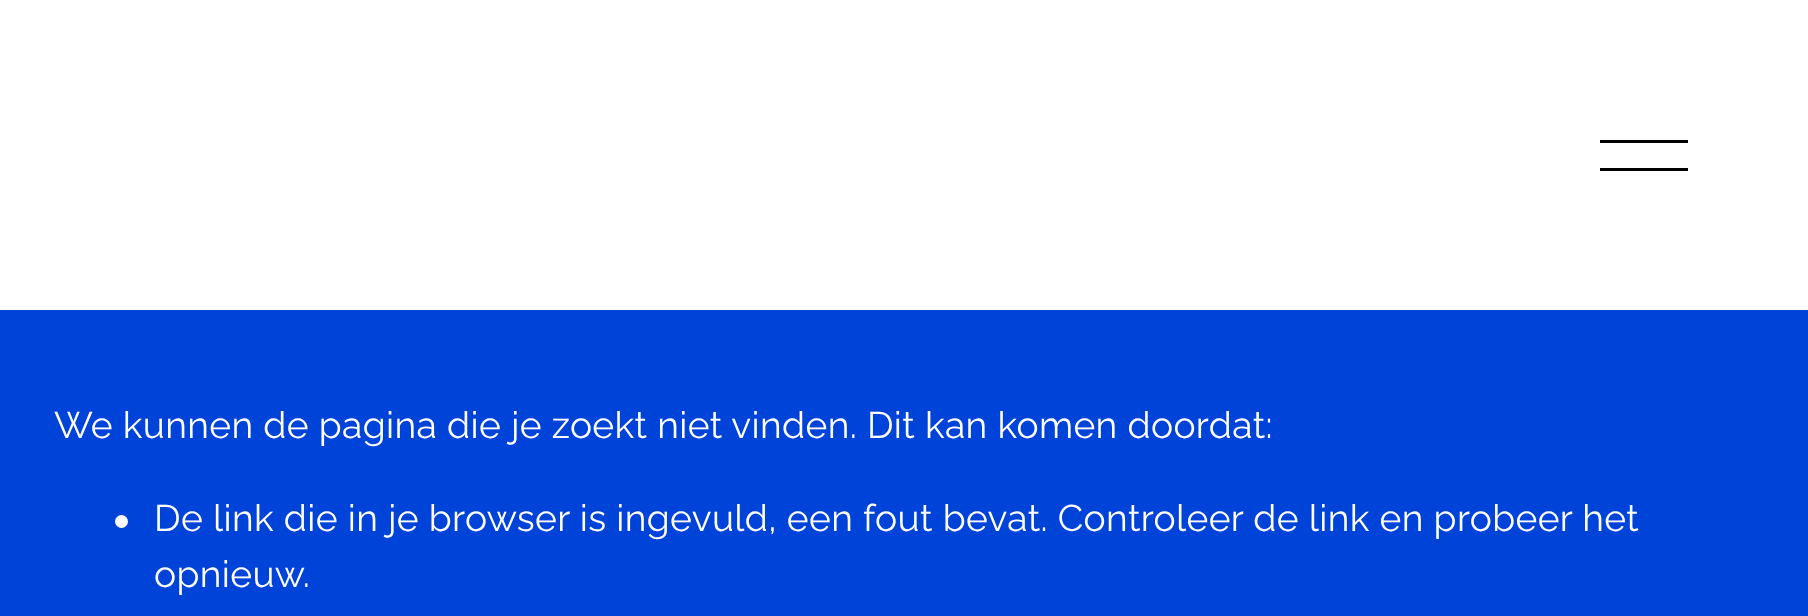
(async () => {
    const canvas = document.querySelector("canvas");
    canvas.width = 1808;
    canvas.height = 616;
    const context = canvas.getContext("2d");
    context.miterLimit = 4;
    context.fontKerning = "normal";
    function write(s, x, y, font, color) {
        context.font = font;
        context.fillStyle = color;
        context.fillText(s, x, y);
    }
    function block(x, y, w, h, color) {
        context.fillStyle = color;
        context.fillRect(x, y, w, h);
    }

    block(0, 0, 1808, 616, "rgb(0, 67, 217)");
    block(0, 0, 1808, 310, "rgb(255, 255, 255)");
    block(1600, 140, 88, 3, "rgb(0, 0, 0)");
    block(1600, 168, 88, 3, "rgb(0, 0, 0)");
    context.letterSpacing = "0.37px";
    write("We kunnen de pagina die je zoekt niet vinden. Dit kan komen doordat:", 54, 438, "37.15px Raleway", "rgb(255, 255, 255)");
    context.beginPath();
    context.arc(121.5, 521.5, 6.5, 0, Math.PI * 2);
    context.fill();
    write("De link die in je browser is ingevuld, een fout bevat. Controleer de link en probeer het", 154, 531, "37.15px Raleway", "rgb(255, 255, 255)");
    write("opnieuw.", 154, 587, "37.15px Raleway", "rgb(255, 255, 255)");
})();
